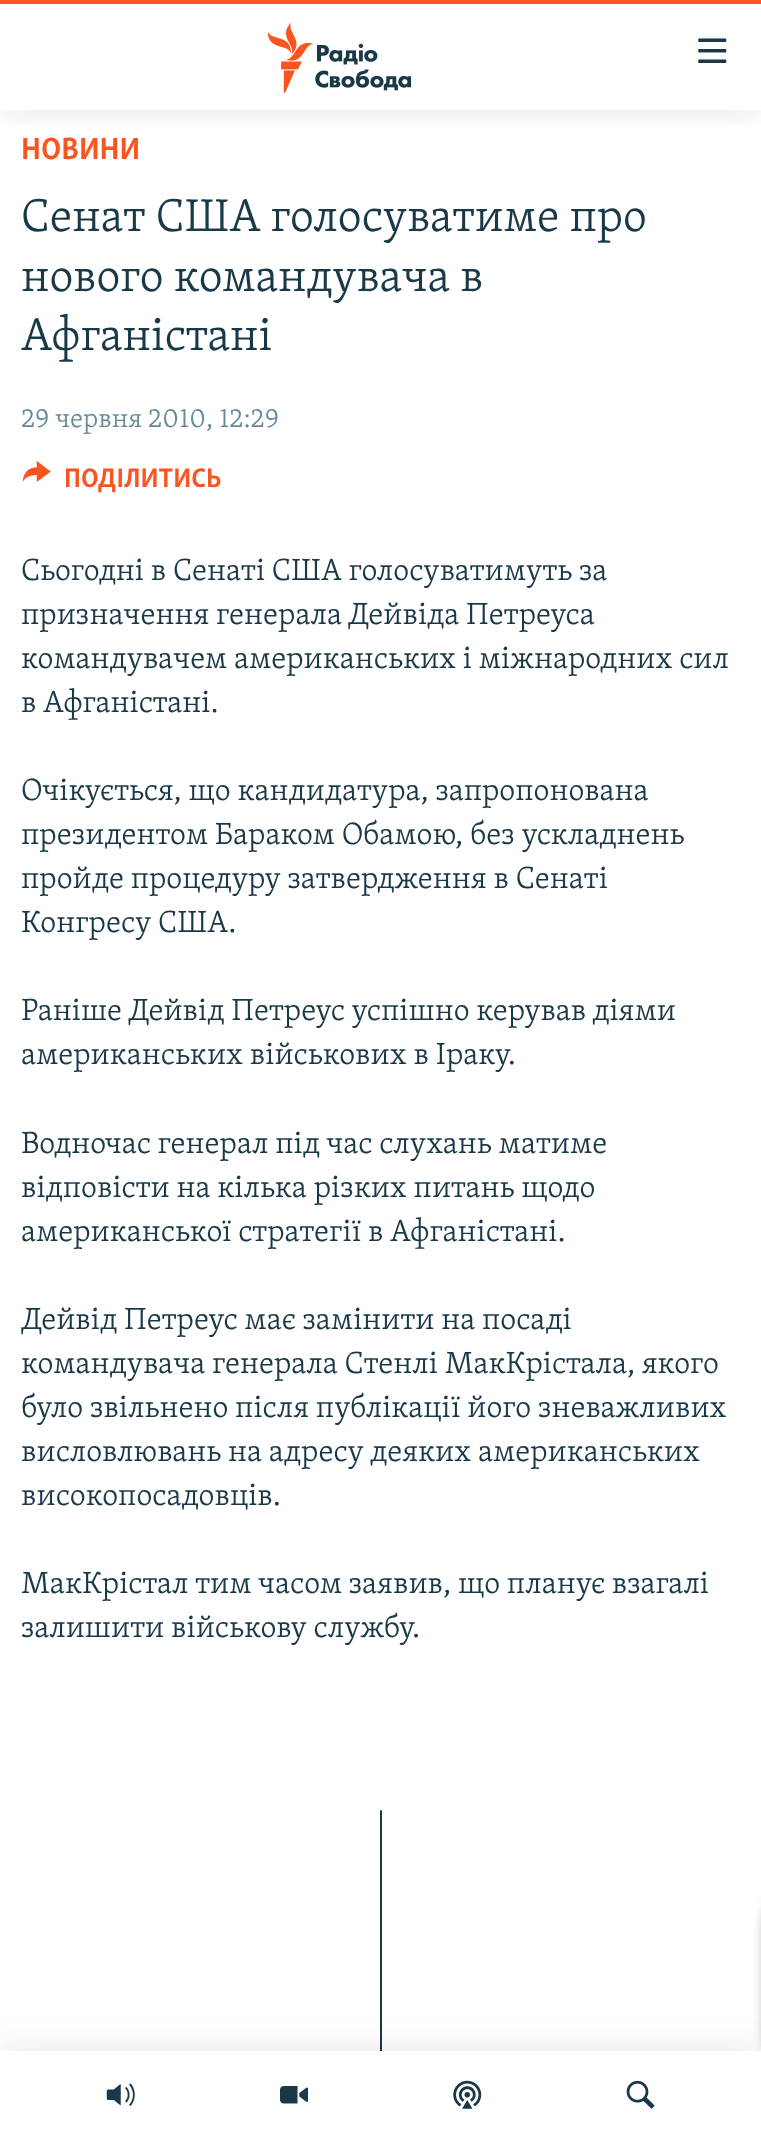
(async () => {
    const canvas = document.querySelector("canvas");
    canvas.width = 761;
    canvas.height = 2138;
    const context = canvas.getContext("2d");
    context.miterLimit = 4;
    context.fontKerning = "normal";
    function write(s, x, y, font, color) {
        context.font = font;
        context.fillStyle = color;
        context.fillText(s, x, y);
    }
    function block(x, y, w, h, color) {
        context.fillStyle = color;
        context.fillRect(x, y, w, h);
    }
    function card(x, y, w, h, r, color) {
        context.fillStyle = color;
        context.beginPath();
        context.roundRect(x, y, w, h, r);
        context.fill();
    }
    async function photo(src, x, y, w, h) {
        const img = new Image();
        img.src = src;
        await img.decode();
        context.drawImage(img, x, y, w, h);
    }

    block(0, 0, 761, 2138, "rgb(255, 255, 255)");
    context.save();
    context.beginPath();
    context.rect(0, 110, 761, 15);
    context.clip();
    context.fillStyle = "rgba(0, 0, 0, 0.1)";
    context.filter = "blur(17.5px)";
    context.beginPath();
    context.rect(0, 0, 761, 110);
    context.fill();
    context.filter = "none";
    context.restore();
    block(0, 0, 761, 4, "rgb(250, 84, 32)");
    await photo("media/1.png", 268, 23, 144, 70);
    await photo("media/2.png", 698, 38, 29, 25);
    card(380, 1810, 2, 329, 1, "rgb(26, 57, 72)");
    context.fillStyle = "rgba(0, 0, 0, 0.1)";
    context.filter = "blur(17.5px)";
    context.beginPath();
    context.rect(0, 2051, 761, 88);
    context.fill();
    context.filter = "none";
    context.fillStyle = "rgba(0, 0, 0, 0.85)";
    context.filter = "blur(9px)";
    context.beginPath();
    context.roundRect(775, 1909, 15, 142, 2);
    context.fill();
    context.filter = "none";
    context.filter = "blur(9px)";
    context.beginPath();
    context.roundRect(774, 1909, 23, 142, 9);
    context.fill();
    context.filter = "none";
    block(0, 2051, 761, 87, "rgb(255, 255, 255)");
    await photo("media/3.png", 106, 2083, 29, 24);
    await photo("media/4.png", 280, 2086, 28, 18);
    await photo("media/5.png", 453, 2080, 29, 29);
    await photo("media/6.png", 626, 2080, 29, 29);
    write("НОВИНИ", 21, 159, "bold 31.5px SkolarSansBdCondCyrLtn", "rgb(250, 84, 32)");
    write("Сенат США голосуватиме про", 21, 231, "300 47.25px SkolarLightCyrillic", "rgb(26, 57, 72)");
    write("нового командувача в", 21, 291, "300 47.25px SkolarLightCyrillic", "rgb(26, 57, 72)");
    write("Афганістані", 21, 350, "300 47.25px SkolarLightCyrillic", "rgb(26, 57, 72)");
    write("29 червня 2010, 12:29", 21, 427, "300 27.5px SkolarLightCyrillic", "rgb(103, 138, 155)");
    await photo("media/7.png", 22, 461, 29, 21);
    write("ПОДІЛИТИСЬ", 64, 487, "bold 27.5px SkolarSansBdCondCyrLtn", "rgb(250, 84, 32)");
    write("Сьогодні в Сенаті США голосуватимуть за", 21, 580, "300 31.5px SkolarLightCyrillic", "rgb(26, 57, 72)");
    write("призначення генерала Дейвіда Петреуса", 21, 624, "300 31.5px SkolarLightCyrillic", "rgb(26, 57, 72)");
    write("командувачем американських і міжнародних сил", 21, 668, "300 31.5px SkolarLightCyrillic", "rgb(26, 57, 72)");
    write("в Афганістані.", 21, 712, "300 31.5px SkolarLightCyrillic", "rgb(26, 57, 72)");
    write("Очікується, що кандидатура, запропонована", 21, 800, "300 31.5px SkolarLightCyrillic", "rgb(26, 57, 72)");
    write("президентом Бараком Обамою, без ускладнень", 21, 844, "300 31.5px SkolarLightCyrillic", "rgb(26, 57, 72)");
    write("пройде процедуру затвердження в Сенаті", 21, 888, "300 31.5px SkolarLightCyrillic", "rgb(26, 57, 72)");
    write("Конгресу США.", 21, 932, "300 31.5px SkolarLightCyrillic", "rgb(26, 57, 72)");
    write("Раніше Дейвід Петреус успішно керував діями", 21, 1020, "300 31.5px SkolarLightCyrillic", "rgb(26, 57, 72)");
    write("американських військових в Іраку.", 21, 1064, "300 31.5px SkolarLightCyrillic", "rgb(26, 57, 72)");
    write("Водночас генерал під час слухань матиме", 21, 1153, "300 31.5px SkolarLightCyrillic", "rgb(26, 57, 72)");
    write("відповісти на кілька різких питань щодо", 21, 1197, "300 31.5px SkolarLightCyrillic", "rgb(26, 57, 72)");
    write("американської стратегії в Афганістані.", 21, 1241, "300 31.5px SkolarLightCyrillic", "rgb(26, 57, 72)");
    write("Дейвід Петреус має замінити на посаді", 21, 1329, "300 31.5px SkolarLightCyrillic", "rgb(26, 57, 72)");
    write("командувача генерала Стенлі МакКрістала, якого", 21, 1373, "300 31.5px SkolarLightCyrillic", "rgb(26, 57, 72)");
    write("було звільнено після публікації його зневажливих", 21, 1417, "300 31.5px SkolarLightCyrillic", "rgb(26, 57, 72)");
    write("висловлювань на адресу деяких американських", 21, 1461, "300 31.5px SkolarLightCyrillic", "rgb(26, 57, 72)");
    write("високопосадовців.", 21, 1505, "300 31.5px SkolarLightCyrillic", "rgb(26, 57, 72)");
    write("МакКрістал тим часом заявив, що планує взагалі", 21, 1593, "300 31.5px SkolarLightCyrillic", "rgb(26, 57, 72)");
    write("залишити військову службу.", 21, 1637, "300 31.5px SkolarLightCyrillic", "rgb(26, 57, 72)");
})();
